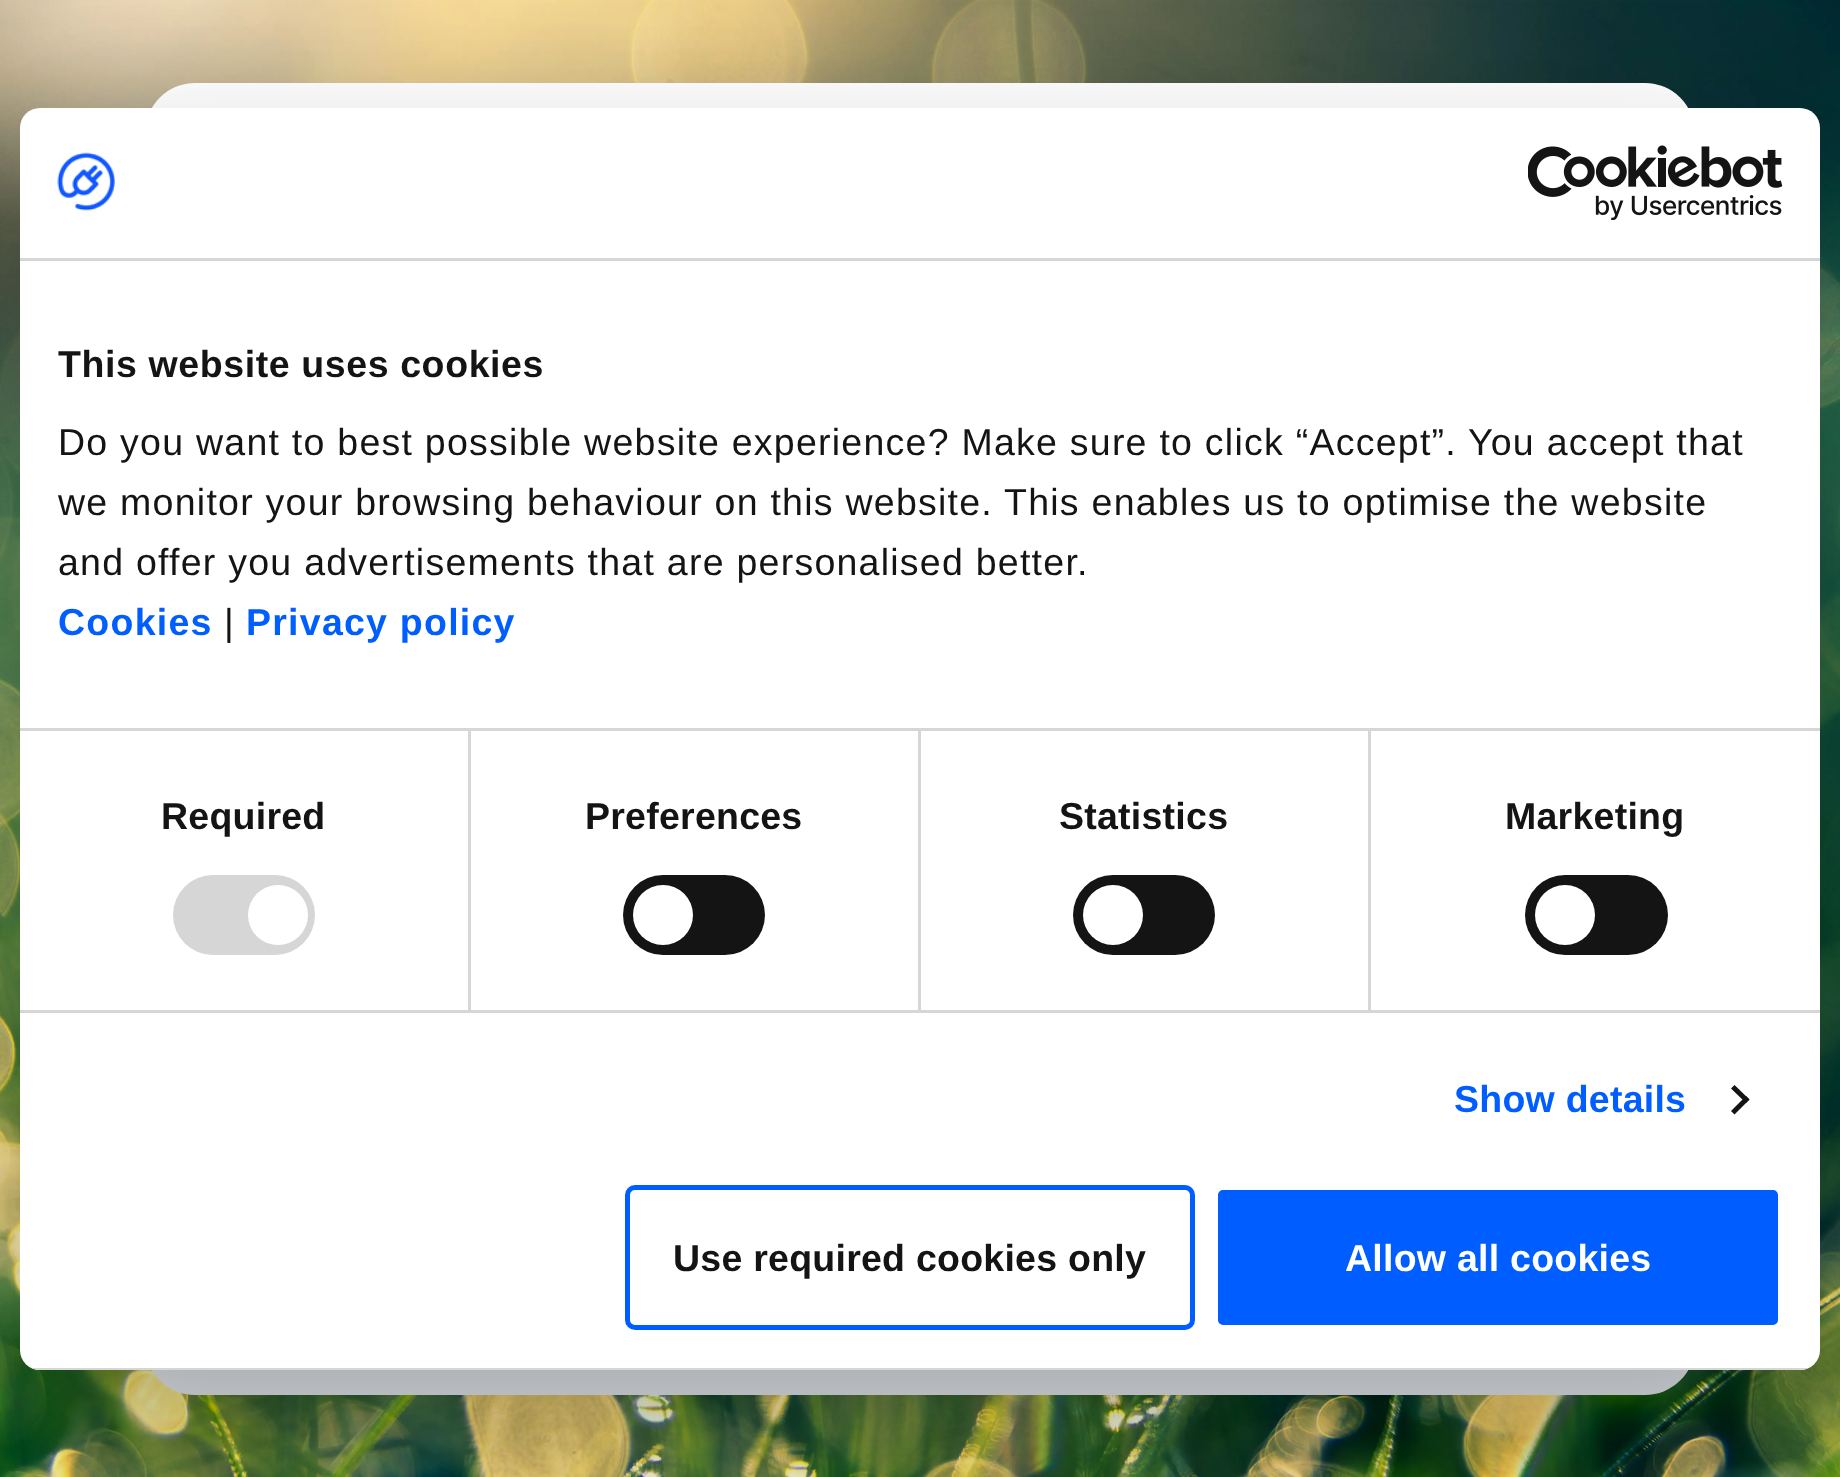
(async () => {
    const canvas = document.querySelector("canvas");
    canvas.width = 1840;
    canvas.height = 1477;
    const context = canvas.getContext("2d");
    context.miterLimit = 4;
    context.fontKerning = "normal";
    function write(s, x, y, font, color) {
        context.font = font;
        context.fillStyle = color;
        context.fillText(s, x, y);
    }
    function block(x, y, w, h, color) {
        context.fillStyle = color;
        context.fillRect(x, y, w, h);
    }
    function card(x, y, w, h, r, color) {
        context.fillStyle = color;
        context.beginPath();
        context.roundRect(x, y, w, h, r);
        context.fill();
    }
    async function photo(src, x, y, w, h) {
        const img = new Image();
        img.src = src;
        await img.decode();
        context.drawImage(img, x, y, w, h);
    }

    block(0, 0, 1840, 1477, "rgb(255, 255, 255)");
    await photo("media/1.png", 0, 0, 1840, 1477);
    context.beginPath();
    context.roundRect(145, 83, 1550, 442, [50, 50, 0, 0]);
    context.fill();
    context.fillStyle = "rgb(237, 241, 247)";
    context.beginPath();
    context.roundRect(145, 525, 1550, 870, [0, 0, 50, 50]);
    context.fill();
    context.fillStyle = "rgba(0, 0, 0, 0.3)";
    context.filter = "blur(85px)";
    context.beginPath();
    context.roundRect(20, 188, 1800, 1262, 20);
    context.fill();
    context.filter = "none";
    card(20, 108, 1800, 1262, 20, "rgb(255, 255, 255)");
    block(20, 258, 1800, 3, "rgb(214, 214, 214)");
    await photo("media/2.png", 57, 152, 58, 59);
    await photo("media/3.png", 1528, 145, 255, 75);
    block(468, 730, 3, 280, "rgb(214, 214, 214)");
    block(918, 730, 3, 280, "rgb(214, 214, 214)");
    block(1368, 730, 3, 280, "rgb(214, 214, 214)");
    block(20, 728, 1800, 3, "rgb(214, 214, 214)");
    context.letterSpacing = "0.6px";
    write("This website uses cookies", 58, 377, "bold 37.5px Liberation Sans", "rgb(20, 20, 20)");
    context.letterSpacing = "1.25px";
    write("Do you want to best possible website experience? Make sure to click “Accept”. You accept that", 58, 455, "37.5px Liberation Sans", "rgb(20, 20, 20)");
    write("we monitor your browsing behaviour on this website. This enables us to optimise the website", 58, 515, "37.5px Liberation Sans", "rgb(20, 20, 20)");
    write("and offer you advertisements that are personalised better.", 58, 575, "37.5px Liberation Sans", "rgb(20, 20, 20)");
    write("Cookies", 58, 635, "bold 37.5px Liberation Sans", "rgb(0, 93, 255)");
    write("|", 224, 635, "37.5px Liberation Sans", "rgb(20, 20, 20)");
    write("Privacy policy", 246, 635, "bold 37.5px Liberation Sans", "rgb(0, 93, 255)");
    block(20, 1010, 1800, 3, "rgb(214, 214, 214)");
    context.letterSpacing = "0.25px";
    write("Required", 161, 829, "bold 37.5px Liberation Sans", "rgb(20, 20, 20)");
    card(173, 875, 142, 80, 40, "rgb(214, 214, 214)");
    context.fillStyle = "rgb(255, 255, 255)";
    context.beginPath();
    context.arc(278, 915, 30, 0, Math.PI * 2);
    context.fill();
    write("Preferences", 585, 829, "bold 37.5px Liberation Sans", "rgb(20, 20, 20)");
    card(623, 875, 142, 80, 40, "rgb(20, 20, 20)");
    context.fillStyle = "rgb(255, 255, 255)";
    context.beginPath();
    context.arc(663, 915, 30, 0, Math.PI * 2);
    context.fill();
    write("Statistics", 1059, 829, "bold 37.5px Liberation Sans", "rgb(20, 20, 20)");
    card(1073, 875, 142, 80, 40, "rgb(20, 20, 20)");
    context.fillStyle = "rgb(255, 255, 255)";
    context.beginPath();
    context.arc(1113, 915, 30, 0, Math.PI * 2);
    context.fill();
    write("Marketing", 1505, 829, "bold 37.5px Liberation Sans", "rgb(20, 20, 20)");
    card(1525, 875, 143, 80, 40, "rgb(20, 20, 20)");
    context.fillStyle = "rgb(255, 255, 255)";
    context.beginPath();
    context.arc(1565, 915, 30, 0, Math.PI * 2);
    context.fill();
    write("Show details", 1454, 1112, "bold 37.5px Liberation Sans", "rgb(0, 93, 255)");
    context.fillStyle = "rgb(20, 20, 20)";
    context.beginPath();
    context.moveTo(1734.5, 1085);
    context.lineTo(1749.5, 1099.5);
    context.lineTo(1746, 1103);
    context.lineTo(1731, 1088.5);
    context.closePath();
    context.fill();
    context.beginPath();
    context.moveTo(1746, 1096);
    context.lineTo(1749.5, 1099.5);
    context.lineTo(1734.5, 1114.5);
    context.lineTo(1731, 1111);
    context.closePath();
    context.fill();
    context.save();
    context.beginPath();
    context.roundRect(20, 108, 1800, 1262, 20);
    context.clip();
    block(31, 1368, 1778, 2, "rgb(214, 214, 214)");
    context.restore();
    context.beginPath();
    context.roundRect(627.5, 1187.5, 565, 140, 7.5);
    context.strokeStyle = "rgb(0, 93, 255)";
    context.lineWidth = 5;
    context.stroke();
    write("Use required cookies only", 673, 1271, "bold 37.5px Liberation Sans", "rgb(20, 20, 20)");
    context.fillStyle = "rgb(0, 93, 255)";
    context.beginPath();
    context.roundRect(1215.5, 1187.5, 565, 140, 7.5);
    context.fill();
    context.strokeStyle = "rgb(255, 255, 255)";
    context.stroke();
    write("Allow all cookies", 1345, 1271, "bold 37.5px Liberation Sans", "rgb(255, 255, 255)");
})();
